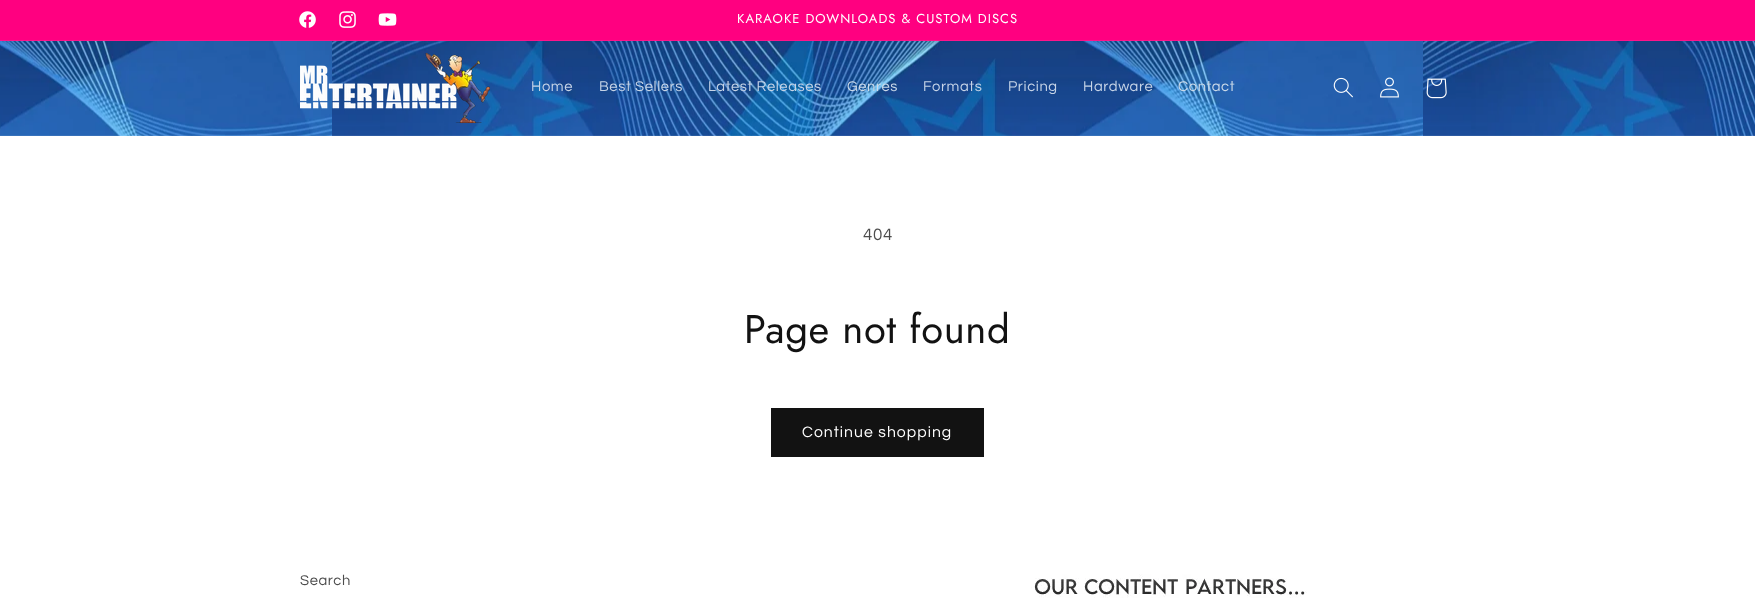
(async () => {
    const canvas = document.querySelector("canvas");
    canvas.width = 1755;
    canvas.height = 614;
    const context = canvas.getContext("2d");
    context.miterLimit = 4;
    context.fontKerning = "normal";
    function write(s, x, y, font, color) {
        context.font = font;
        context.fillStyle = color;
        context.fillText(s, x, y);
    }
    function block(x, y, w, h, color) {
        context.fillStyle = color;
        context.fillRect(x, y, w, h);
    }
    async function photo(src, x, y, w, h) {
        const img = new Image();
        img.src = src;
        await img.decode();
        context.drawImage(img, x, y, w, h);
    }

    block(0, 0, 1755, 614, "rgb(255, 255, 255)");
    block(0, 0, 1755, 40, "rgb(255, 0, 128)");
    block(0, 40, 1755, 1, "rgb(255, 20, 138)");
    await photo("media/1.png", 299, 11, 17, 17);
    await photo("media/2.png", 339, 11, 17, 17);
    await photo("media/3.png", 378, 13, 19, 13);
    context.letterSpacing = "1.05px";
    write("KARAOKE DOWNLOADS & CUSTOM DISCS", 737, 23, "13px Jost", "rgb(255, 255, 255)");
    await photo("media/4.png", 0, 41, 1755, 95);
    block(0, 135, 1755, 1, "rgba(255, 255, 255, 0.08)");
    await photo("media/5.png", 300, 53, 190, 70);
    context.letterSpacing = "0.6px";
    write("Home", 531, 91, "14.75px Questrial", "rgb(198, 212, 231)");
    write("Best Sellers", 599, 91, "14.75px Questrial", "rgb(198, 212, 231)");
    write("Latest Releases", 708, 91, "14.75px Questrial", "rgb(198, 212, 231)");
    write("Genres", 847, 91, "14.75px Questrial", "rgb(203, 218, 233)");
    write("Formats", 923, 91, "14.75px Questrial", "rgb(198, 212, 231)");
    write("Pricing", 1008, 91, "14.75px Questrial", "rgb(198, 212, 231)");
    write("Hardware", 1083, 91, "14.75px Questrial", "rgb(198, 212, 231)");
    write("Contact", 1178, 91, "14.75px Questrial", "rgb(203, 218, 233)");
    await photo("media/6.png", 1333, 77, 20, 21);
    await photo("media/7.png", 1380, 77, 19, 21);
    await photo("media/8.png", 1426, 78, 21, 21);
    write("404", 863, 240, "17px Questrial", "rgb(77, 77, 77)");
    write("Page not found", 744, 343, "40px Jost", "rgb(18, 18, 18)");
    block(771, 408, 213, 49, "rgb(18, 18, 18)");
    context.letterSpacing = "1.05px";
    write("Continue shopping", 802, 437, "15.75px Questrial", "rgb(255, 255, 255)");
    context.letterSpacing = "0.6px";
    write("Search", 300, 585, "14.75px Questrial", "rgb(77, 77, 77)");
    await photo("media/9.png", 1031, 574, 276, 24);
})();
